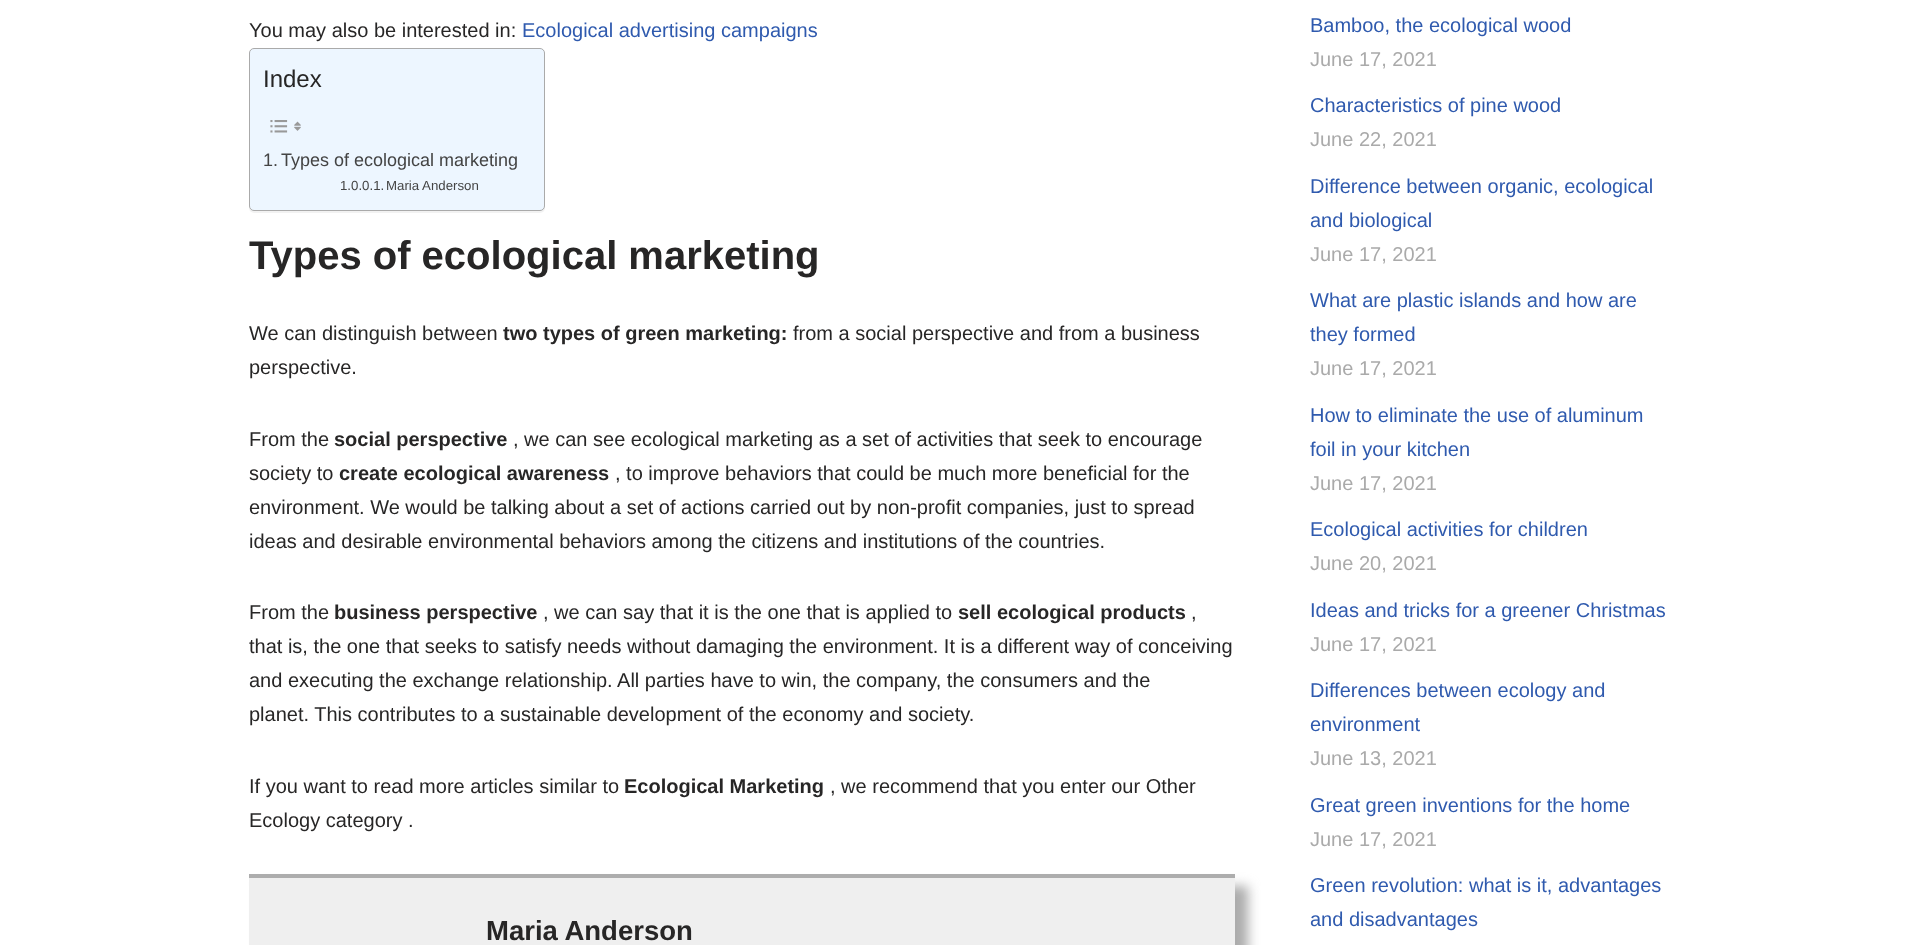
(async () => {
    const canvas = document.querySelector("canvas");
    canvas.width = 1922;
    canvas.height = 945;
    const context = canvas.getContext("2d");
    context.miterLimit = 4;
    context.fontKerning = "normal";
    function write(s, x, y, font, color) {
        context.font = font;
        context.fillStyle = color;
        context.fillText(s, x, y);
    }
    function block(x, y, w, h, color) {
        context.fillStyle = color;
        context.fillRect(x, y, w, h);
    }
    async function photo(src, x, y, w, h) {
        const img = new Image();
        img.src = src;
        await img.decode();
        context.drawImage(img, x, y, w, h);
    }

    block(0, 0, 1922, 945, "rgb(255, 255, 255)");
    write("You may also be interested in:", 249, 37, "20px Liberation Sans", "rgb(39, 38, 38)");
    write("Ecological advertising campaigns", 522, 37, "20px Liberation Sans", "rgb(47, 90, 174)");
    context.fillStyle = "rgba(0, 0, 0, 0.05)";
    context.filter = "blur(0.5px)";
    context.beginPath();
    context.roundRect(249, 49, 296, 164, 5);
    context.fill();
    context.filter = "none";
    context.fillStyle = "rgb(237, 246, 255)";
    context.beginPath();
    context.roundRect(249.5, 48.5, 295, 162, 4.5);
    context.fill();
    context.strokeStyle = "rgb(170, 170, 170)";
    context.stroke();
    write("Index", 263, 87, "24px Liberation Sans", "rgb(39, 38, 38)");
    await photo("media/1.png", 270, 120, 18, 13);
    await photo("media/2.png", 294, 121, 7, 10);
    write("1.", 263, 166, "18px Liberation Sans", "rgb(68, 68, 68)");
    write("Types of ecological marketing", 281, 166, "18px Liberation Sans", "rgb(68, 68, 68)");
    write("1.0.0.1.", 340, 190, "13.25px Liberation Sans", "rgb(68, 68, 68)");
    write("Maria Anderson", 386, 190, "13.25px Liberation Sans", "rgb(68, 68, 68)");
    write("Types of ecological marketing", 249, 269, "bold 40px Liberation Sans", "rgb(39, 38, 38)");
    write("We can distinguish between", 249, 340, "20px Liberation Sans", "rgb(39, 38, 38)");
    write("two types of green marketing:", 503, 340, "bold 20px Liberation Sans", "rgb(39, 38, 38)");
    write("from a social perspective and from a business", 793, 340, "20px Liberation Sans", "rgb(39, 38, 38)");
    write("perspective.", 249, 374, "20px Liberation Sans", "rgb(39, 38, 38)");
    write("From the", 249, 446, "20px Liberation Sans", "rgb(39, 38, 38)");
    write("social perspective", 334, 446, "bold 20px Liberation Sans", "rgb(39, 38, 38)");
    write(", we can see ecological marketing as a set of activities that seek to encourage", 513, 446, "20px Liberation Sans", "rgb(39, 38, 38)");
    write("society to", 249, 480, "20px Liberation Sans", "rgb(39, 38, 38)");
    write("create ecological awareness", 339, 480, "bold 20px Liberation Sans", "rgb(39, 38, 38)");
    write(", to improve behaviors that could be much more beneficial for the", 615, 480, "20px Liberation Sans", "rgb(39, 38, 38)");
    write("environment. We would be talking about a set of actions carried out by non-profit companies, just to spread", 249, 514, "20px Liberation Sans", "rgb(39, 38, 38)");
    write("ideas and desirable environmental behaviors among the citizens and institutions of the countries.", 249, 548, "20px Liberation Sans", "rgb(39, 38, 38)");
    write("From the", 249, 619, "20px Liberation Sans", "rgb(39, 38, 38)");
    write("business perspective", 334, 619, "bold 20px Liberation Sans", "rgb(39, 38, 38)");
    write(", we can say that it is the one that is applied to", 543, 619, "20px Liberation Sans", "rgb(39, 38, 38)");
    write("sell ecological products", 958, 619, "bold 20px Liberation Sans", "rgb(39, 38, 38)");
    write(",", 1191, 619, "20px Liberation Sans", "rgb(39, 38, 38)");
    write("that is, the one that seeks to satisfy needs without damaging the environment. It is a different way of conceiving", 249, 653, "20px Liberation Sans", "rgb(39, 38, 38)");
    write("and executing the exchange relationship. All parties have to win, the company, the consumers and the", 249, 687, "20px Liberation Sans", "rgb(39, 38, 38)");
    write("planet. This contributes to a sustainable development of the economy and society.", 249, 721, "20px Liberation Sans", "rgb(39, 38, 38)");
    write("If you want to read more articles similar to", 249, 793, "20px Liberation Sans", "rgb(39, 38, 38)");
    write("Ecological Marketing", 624, 793, "bold 20px Liberation Sans", "rgb(39, 38, 38)");
    write(", we recommend that you enter our Other", 830, 793, "20px Liberation Sans", "rgb(39, 38, 38)");
    write("Ecology category .", 249, 827, "20px Liberation Sans", "rgb(39, 38, 38)");
    context.fillStyle = "rgb(171, 171, 171)";
    context.filter = "blur(6px)";
    context.beginPath();
    context.rect(261, 886, 987, 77);
    context.fill();
    context.filter = "none";
    block(249, 878, 986, 67, "rgb(239, 239, 239)");
    block(249, 874, 986, 4, "rgb(173, 173, 173)");
    write("Maria Anderson", 486, 940, "bold 27.5px Liberation Sans", "rgb(39, 38, 38)");
    write("Bamboo, the ecological wood", 1310, 32, "20px Liberation Sans", "rgb(47, 90, 174)");
    write("June 17, 2021", 1310, 66, "20px Liberation Sans", "rgb(170, 170, 170)");
    write("Characteristics of pine wood", 1310, 112, "20px Liberation Sans", "rgb(47, 90, 174)");
    write("June 22, 2021", 1310, 146, "20px Liberation Sans", "rgb(170, 170, 170)");
    write("Difference between organic, ecological", 1310, 193, "20px Liberation Sans", "rgb(47, 90, 174)");
    write("and biological", 1310, 227, "20px Liberation Sans", "rgb(47, 90, 174)");
    write("June 17, 2021", 1310, 261, "20px Liberation Sans", "rgb(170, 170, 170)");
    write("What are plastic islands and how are", 1310, 307, "20px Liberation Sans", "rgb(47, 90, 174)");
    write("they formed", 1310, 341, "20px Liberation Sans", "rgb(47, 90, 174)");
    write("June 17, 2021", 1310, 375, "20px Liberation Sans", "rgb(170, 170, 170)");
    write("How to eliminate the use of aluminum", 1310, 422, "20px Liberation Sans", "rgb(47, 90, 174)");
    write("foil in your kitchen", 1310, 456, "20px Liberation Sans", "rgb(47, 90, 174)");
    write("June 17, 2021", 1310, 490, "20px Liberation Sans", "rgb(170, 170, 170)");
    write("Ecological activities for children", 1310, 536, "20px Liberation Sans", "rgb(47, 90, 174)");
    write("June 20, 2021", 1310, 570, "20px Liberation Sans", "rgb(170, 170, 170)");
    write("Ideas and tricks for a greener Christmas", 1310, 617, "20px Liberation Sans", "rgb(47, 90, 174)");
    write("June 17, 2021", 1310, 651, "20px Liberation Sans", "rgb(170, 170, 170)");
    write("Differences between ecology and", 1310, 697, "20px Liberation Sans", "rgb(47, 90, 174)");
    write("environment", 1310, 731, "20px Liberation Sans", "rgb(47, 90, 174)");
    write("June 13, 2021", 1310, 765, "20px Liberation Sans", "rgb(170, 170, 170)");
    write("Great green inventions for the home", 1310, 812, "20px Liberation Sans", "rgb(47, 90, 174)");
    write("June 17, 2021", 1310, 846, "20px Liberation Sans", "rgb(170, 170, 170)");
    write("Green revolution: what is it, advantages", 1310, 892, "20px Liberation Sans", "rgb(47, 90, 174)");
    write("and disadvantages", 1310, 926, "20px Liberation Sans", "rgb(47, 90, 174)");
})();
